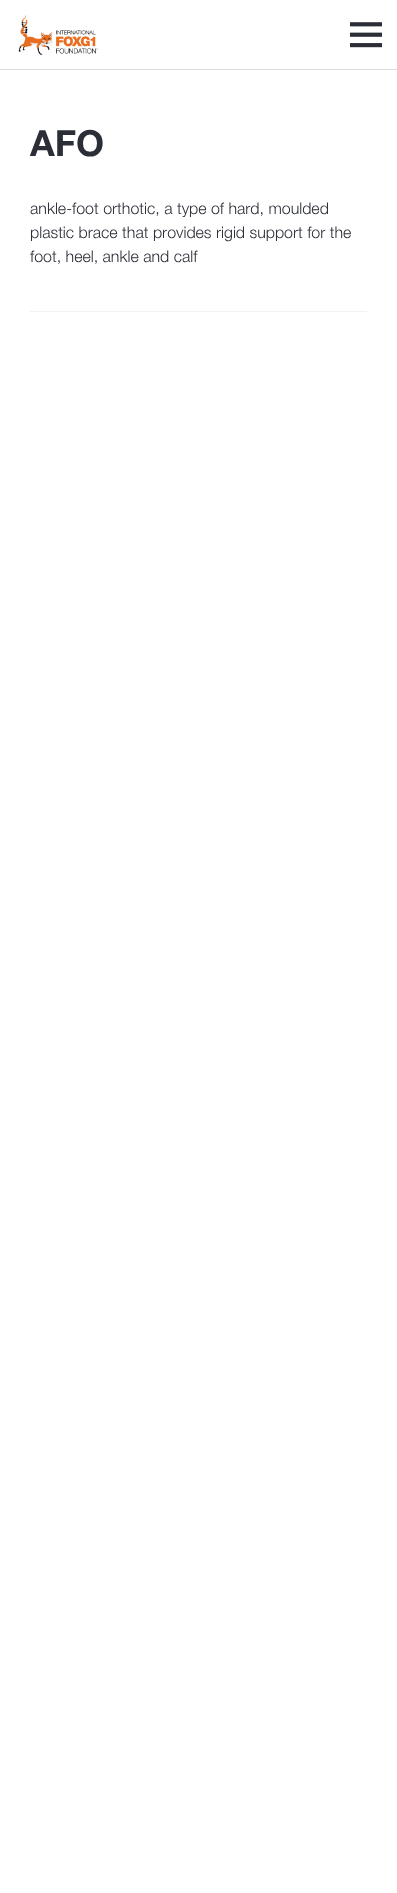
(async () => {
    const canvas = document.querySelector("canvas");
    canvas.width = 397;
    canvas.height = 1893;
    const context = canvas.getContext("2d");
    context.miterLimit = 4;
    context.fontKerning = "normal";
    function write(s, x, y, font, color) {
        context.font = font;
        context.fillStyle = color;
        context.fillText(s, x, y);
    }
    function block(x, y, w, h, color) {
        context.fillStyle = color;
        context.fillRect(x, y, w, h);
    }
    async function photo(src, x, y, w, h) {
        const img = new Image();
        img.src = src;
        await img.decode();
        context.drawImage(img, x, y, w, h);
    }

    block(0, 0, 397, 1893, "rgb(255, 255, 255)");
    block(0, 69, 397, 1, "rgb(220, 220, 220)");
    await photo("media/1.png", 18, 15, 80, 40);
    await photo("media/2.png", 350, 22, 32, 26);
    write("AFO", 30, 156, "bold 36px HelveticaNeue", "rgb(44, 46, 55)");
    write("ankle-foot orthotic, a type of hard, moulded", 30, 214, "300 16px HelveticaNeue", "rgb(44, 46, 55)");
    write("plastic brace that provides rigid support for the", 30, 238, "300 16px HelveticaNeue", "rgb(44, 46, 55)");
    write("foot, heel, ankle and calf", 30, 262, "300 16px HelveticaNeue", "rgb(44, 46, 55)");
    block(30, 311, 337, 1, "rgb(242, 242, 242)");
})();
